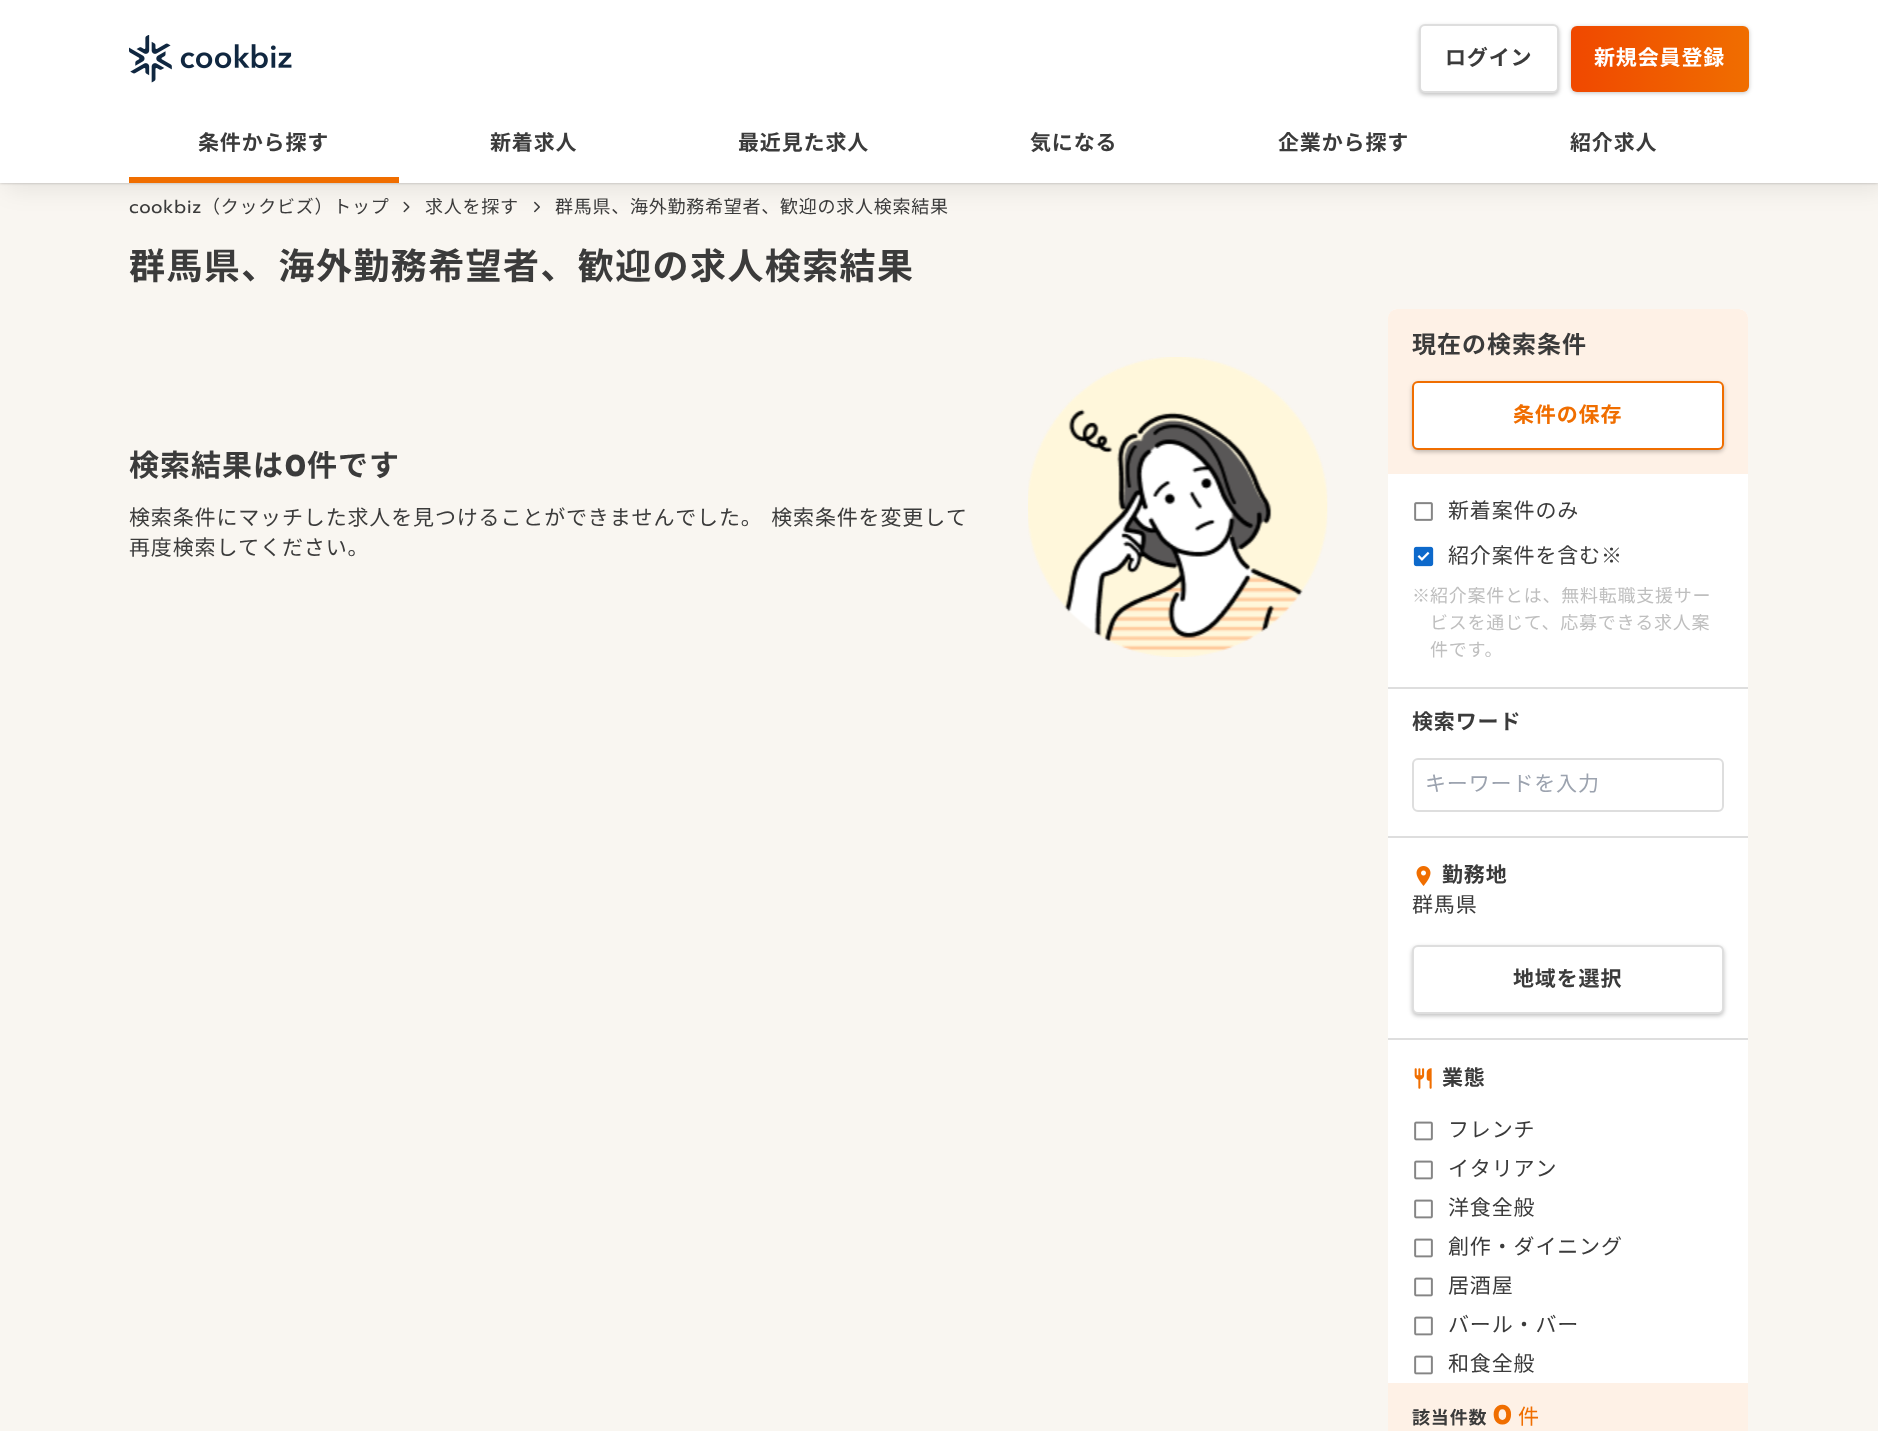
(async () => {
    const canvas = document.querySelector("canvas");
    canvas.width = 1878;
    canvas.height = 1431;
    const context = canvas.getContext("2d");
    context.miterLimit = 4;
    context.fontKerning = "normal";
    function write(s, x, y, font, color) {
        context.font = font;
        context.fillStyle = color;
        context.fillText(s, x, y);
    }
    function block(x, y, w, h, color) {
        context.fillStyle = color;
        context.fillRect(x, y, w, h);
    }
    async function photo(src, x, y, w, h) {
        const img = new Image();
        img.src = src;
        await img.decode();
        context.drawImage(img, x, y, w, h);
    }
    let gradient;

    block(0, 0, 1878, 1431, "rgb(249, 246, 241)");
    context.fillStyle = "rgba(0, 0, 0, 0.25)";
    context.filter = "blur(1.5px)";
    context.beginPath();
    context.rect(0, 0, 1878, 183);
    context.fill();
    context.filter = "none";
    context.fillStyle = "rgba(0, 0, 0, 0.08)";
    context.filter = "blur(12px)";
    context.beginPath();
    context.rect(6, 6, 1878, 183);
    context.fill();
    context.filter = "none";
    block(0, 0, 1878, 183, "rgb(255, 255, 255)");
    await photo("media/1.png", 129, 35, 163, 48);
    context.fillStyle = "rgba(0, 0, 0, 0.24)";
    context.filter = "blur(2px)";
    context.beginPath();
    context.roundRect(1419, 26, 140, 69, 6);
    context.fill();
    context.filter = "none";
    context.fillStyle = "rgb(255, 255, 255)";
    context.beginPath();
    context.roundRect(1420, 25, 138, 67, 5);
    context.fill();
    context.strokeStyle = "rgb(222, 222, 222)";
    context.lineWidth = 2;
    context.stroke();
    context.letterSpacing = "0.85px";
    write("ログイン", 1445, 65, "bold 21px Noto Sans JP", "rgb(59, 59, 59)");
    context.fillStyle = "rgba(0, 0, 0, 0.24)";
    context.filter = "blur(2px)";
    context.beginPath();
    context.roundRect(1571, 27, 178, 66, 6);
    context.fill();
    context.filter = "none";
    gradient = context.createLinearGradient(1571, 59, 1749, 58);
    gradient.addColorStop(0, "rgb(240, 72, 0)");
    gradient.addColorStop(1, "rgb(240, 110, 0)");
    context.fillStyle = gradient;
    context.beginPath();
    context.roundRect(1571, 26, 178, 66, 6);
    context.fill();
    write("新規会員登録", 1594, 65, "bold 21px Noto Sans JP", "rgb(255, 255, 255)");
    block(129, 177, 270, 6, "rgb(240, 110, 0)");
    write("条件から探す", 198, 150, "bold 21px Noto Sans JP", "rgb(59, 59, 59)");
    write("新着求人", 490, 150, "bold 21px Noto Sans JP", "rgb(59, 59, 59)");
    write("最近見た求人", 738, 150, "bold 21px Noto Sans JP", "rgb(59, 59, 59)");
    write("気になる", 1030, 150, "bold 21px Noto Sans JP", "rgb(59, 59, 59)");
    write("企業から探す", 1278, 150, "bold 21px Noto Sans JP", "rgb(59, 59, 59)");
    write("紹介求人", 1570, 150, "bold 21px Noto Sans JP", "rgb(59, 59, 59)");
    context.letterSpacing = "0.75px";
    write("cookbiz", 129, 213, "18px Prompt", "rgb(59, 59, 59)");
    write("（クックビズ）トップ", 202, 213, "18px Noto Sans JP", "rgb(59, 59, 59)");
    await photo("media/2.png", 403, 201, 7, 12);
    write("求人を探す", 425, 213, "18px Noto Sans JP", "rgb(59, 59, 59)");
    await photo("media/3.png", 534, 201, 6, 12);
    write("群馬県、海外勤務希望者、歓迎の求人検索結果", 555, 213, "18px Noto Sans JP", "rgb(59, 59, 59)");
    context.letterSpacing = "1.4px";
    write("群馬県、海外勤務希望者、歓迎の求人検索結果", 129, 279, "bold 36px Noto Sans JP", "rgb(59, 59, 59)");
    context.letterSpacing = "1px";
    write("検索結果は", 129, 476, "bold 30px Noto Sans JP", "rgb(59, 59, 59)");
    write("0", 285, 476, "bold 30px Prompt", "rgb(59, 59, 59)");
    write("件です", 307, 476, "bold 30px Noto Sans JP", "rgb(59, 59, 59)");
    context.letterSpacing = "0.85px";
    context.wordSpacing = "3px";
    write("検索条件にマッチした求人を見つけることができませんでした。 検索条件を変更して", 129, 525, "21px Noto Sans JP", "rgb(59, 59, 59)");
    context.wordSpacing = "0px";
    write("再度検索してください。", 129, 555, "21px Noto Sans JP", "rgb(59, 59, 59)");
    await photo("media/4.png", 1028, 357, 300, 300);
    context.fillStyle = "rgb(255, 255, 255)";
    context.beginPath();
    context.roundRect(1388, 309, 360, 1074, [9, 9, 0, 0]);
    context.fill();
    context.fillStyle = "rgb(254, 241, 230)";
    context.beginPath();
    context.roundRect(1388, 309, 360, 165, [9, 9, 0, 0]);
    context.fill();
    context.letterSpacing = "1px";
    write("現在の検索条件", 1412, 353, "bold 24px Noto Sans JP", "rgb(59, 59, 59)");
    context.fillStyle = "rgba(0, 0, 0, 0.24)";
    context.filter = "blur(2px)";
    context.beginPath();
    context.roundRect(1412, 383, 312, 69, 6);
    context.fill();
    context.filter = "none";
    context.fillStyle = "rgb(255, 255, 255)";
    context.beginPath();
    context.roundRect(1413, 382, 310, 67, 5);
    context.fill();
    context.strokeStyle = "rgb(240, 110, 0)";
    context.stroke();
    context.letterSpacing = "0.85px";
    write("条件の保存", 1513, 422, "bold 21px Noto Sans JP", "rgb(240, 110, 0)");
    block(1388, 687, 360, 2, "rgb(222, 222, 222)");
    await photo("media/5.png", 1414, 502, 19, 19);
    write("新着案件のみ", 1448, 518, "21px Noto Sans JP", "rgb(59, 59, 59)");
    await photo("media/6.png", 1413, 546, 21, 21);
    write("紹介案件を含む※", 1448, 563, "21px Noto Sans JP", "rgb(59, 59, 59)");
    context.letterSpacing = "0.75px";
    write("※", 1412, 602, "18px Noto Sans JP", "rgb(191, 191, 191)");
    write("紹介案件とは、無料転職支援サー", 1430, 602, "18px Noto Sans JP", "rgb(191, 191, 191)");
    write("ビスを通じて、応募できる求人案", 1430, 629, "18px Noto Sans JP", "rgb(191, 191, 191)");
    write("件です。", 1430, 656, "18px Noto Sans JP", "rgb(191, 191, 191)");
    block(1388, 836, 360, 2, "rgb(222, 222, 222)");
    context.letterSpacing = "0.85px";
    write("検索ワード", 1412, 729, "bold 21px Noto Sans JP", "rgb(59, 59, 59)");
    context.beginPath();
    context.roundRect(1413, 759, 310, 52, 5);
    context.strokeStyle = "rgb(222, 222, 222)";
    context.stroke();
    write("キーワードを入力", 1425, 791, "21px Noto Sans JP", "rgb(156, 163, 175)");
    block(1388, 1038, 360, 2, "rgb(222, 222, 222)");
    await photo("media/7.png", 1416, 866, 15, 20);
    write("勤務地", 1442, 882, "bold 21px Noto Sans JP", "rgb(59, 59, 59)");
    write("群馬県", 1412, 912, "21px Noto Sans JP", "rgb(59, 59, 59)");
    context.fillStyle = "rgba(0, 0, 0, 0.24)";
    context.filter = "blur(2px)";
    context.beginPath();
    context.roundRect(1412, 947, 312, 69, 6);
    context.fill();
    context.filter = "none";
    context.fillStyle = "rgb(255, 255, 255)";
    context.beginPath();
    context.roundRect(1413, 946, 310, 67, 5);
    context.fill();
    context.stroke();
    write("地域を選択", 1513, 986, "bold 21px Noto Sans JP", "rgb(59, 59, 59)");
    await photo("media/8.png", 1414, 1068, 18, 21);
    write("業態", 1442, 1085, "bold 21px Noto Sans JP", "rgb(59, 59, 59)");
    await photo("media/9.png", 1414, 1121, 19, 20);
    write("フレンチ", 1448, 1137, "21px Noto Sans JP", "rgb(59, 59, 59)");
    await photo("media/9.png", 1414, 1160, 19, 20);
    write("イタリアン", 1448, 1176, "21px Noto Sans JP", "rgb(59, 59, 59)");
    await photo("media/9.png", 1414, 1199, 19, 20);
    write("洋食全般", 1448, 1215, "21px Noto Sans JP", "rgb(59, 59, 59)");
    await photo("media/9.png", 1414, 1238, 19, 20);
    write("創作・ダイニング", 1448, 1254, "21px Noto Sans JP", "rgb(59, 59, 59)");
    await photo("media/9.png", 1414, 1277, 19, 20);
    write("居酒屋", 1448, 1293, "21px Noto Sans JP", "rgb(59, 59, 59)");
    await photo("media/9.png", 1414, 1316, 19, 20);
    write("バール・バー", 1448, 1332, "21px Noto Sans JP", "rgb(59, 59, 59)");
    await photo("media/9.png", 1414, 1355, 19, 20);
    write("和食全般", 1448, 1371, "21px Noto Sans JP", "rgb(59, 59, 59)");
    block(1388, 1383, 360, 48, "rgb(254, 241, 230)");
    write("該当件数", 1412, 1424, "bold 18px Noto Sans JP", "rgb(59, 59, 59)");
    write("0", 1493, 1424, "bold 27px Prompt", "rgb(240, 110, 0)");
    write("件", 1518, 1424, "21px Noto Sans JP", "rgb(240, 110, 0)");
})();
